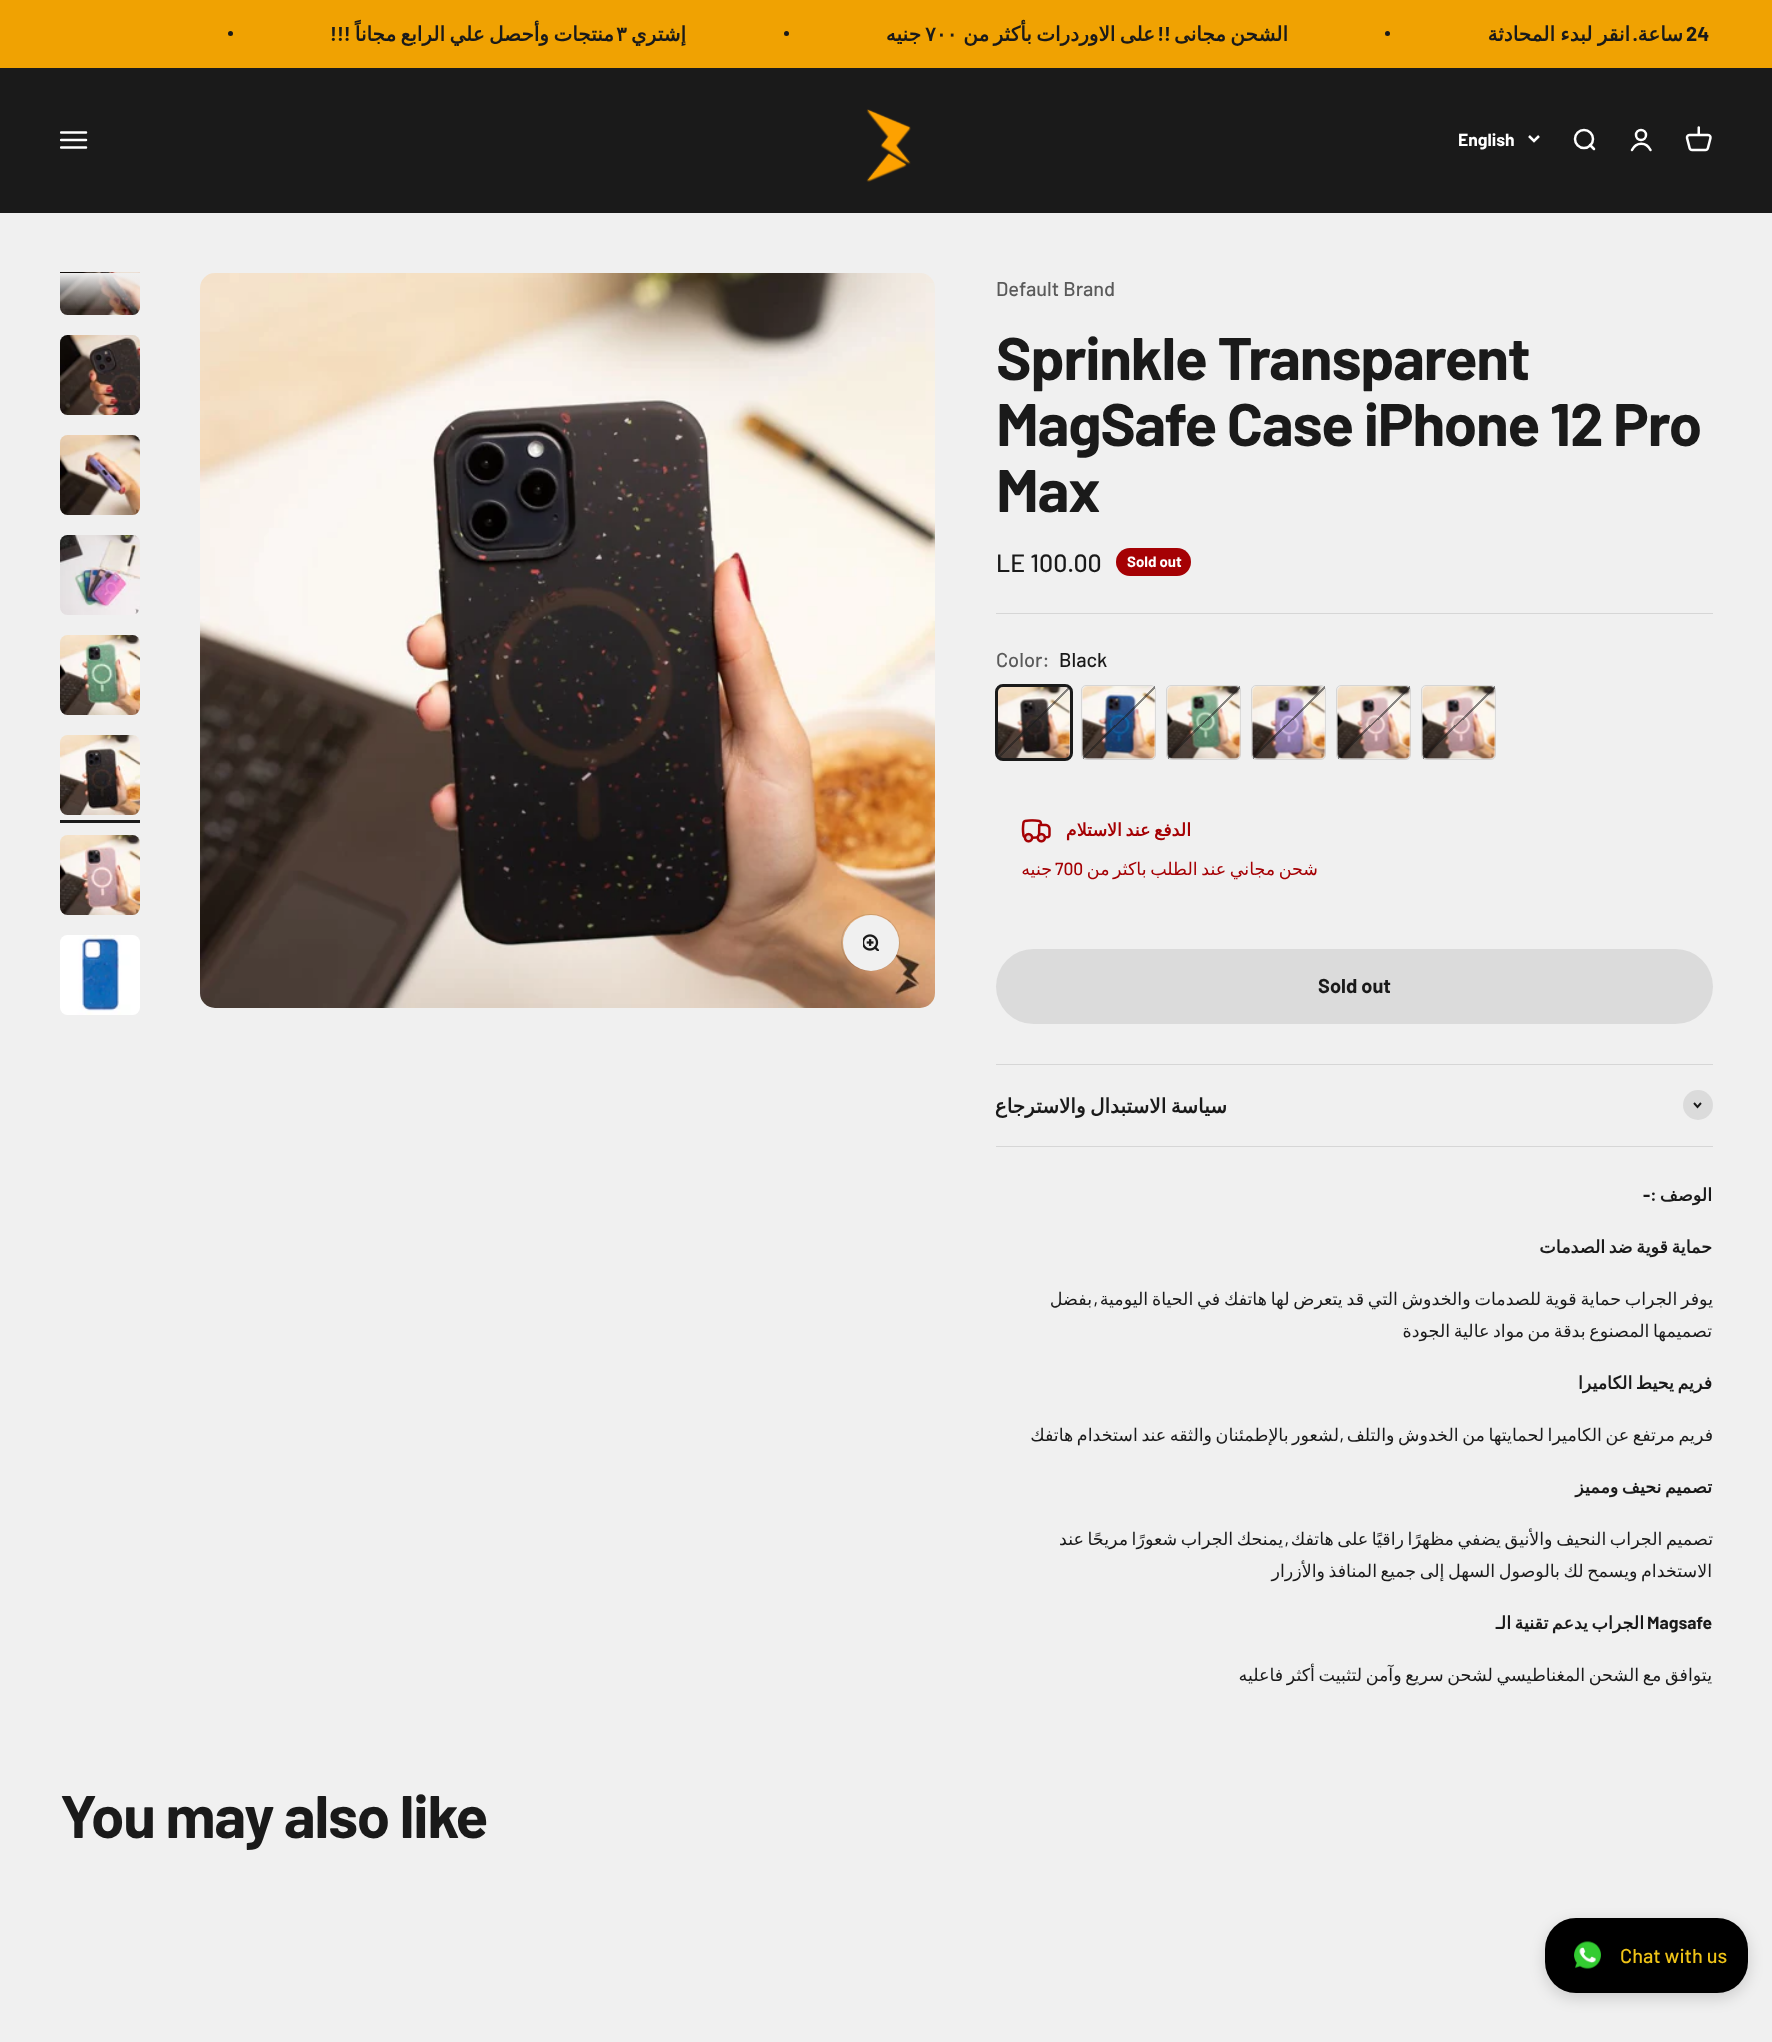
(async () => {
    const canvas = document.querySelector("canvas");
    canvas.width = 1772;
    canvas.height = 2042;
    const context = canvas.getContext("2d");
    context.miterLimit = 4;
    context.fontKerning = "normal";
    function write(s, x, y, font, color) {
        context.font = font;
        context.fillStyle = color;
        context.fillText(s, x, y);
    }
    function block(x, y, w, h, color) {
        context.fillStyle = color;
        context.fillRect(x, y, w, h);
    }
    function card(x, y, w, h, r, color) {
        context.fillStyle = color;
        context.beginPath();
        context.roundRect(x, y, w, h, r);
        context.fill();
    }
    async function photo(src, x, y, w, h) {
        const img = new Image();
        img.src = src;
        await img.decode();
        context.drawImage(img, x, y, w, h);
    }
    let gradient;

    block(0, 0, 1772, 2042, "rgb(240, 240, 240)");
    block(0, 0, 1772, 68, "rgb(240, 162, 2)");
    write("24", 1686, 41, "bold 20px Barlow", "rgb(26, 26, 26)");
    context.direction = "rtl";
    write("ساعة", 1683, 41, "bold 20px DejaVu Sans", "rgb(26, 26, 26)");
    write(".", 1638, 41, "bold 20px Barlow", "rgb(26, 26, 26)");
    context.wordSpacing = "-1px";
    write("انقر لبدء المحادثة", 1630, 41, "bold 20px DejaVu Sans", "rgb(26, 26, 26)");
    context.beginPath();
    context.arc(1387.5, 33.5, 2.5, 0, Math.PI * 2);
    context.fill();
    context.wordSpacing = "-2px";
    write("الشحن مجانى", 1288, 41, "bold 20px DejaVu Sans", "rgb(26, 26, 26)");
    context.wordSpacing = "0px";
    write("!!", 1171, 41, "bold 20px Barlow", "rgb(26, 26, 26)");
    context.wordSpacing = "-2px";
    write("على الاوردرات بأكثر من", 1155, 41, "bold 20px DejaVu Sans", "rgb(26, 26, 26)");
    context.wordSpacing = "0px";
    context.direction = "ltr";
    write("٧٠٠", 925, 41, "bold 20px DejaVu Sans", "rgb(26, 26, 26)");
    context.direction = "rtl";
    write("جنيه", 921, 41, "bold 20px DejaVu Sans", "rgb(26, 26, 26)");
    context.beginPath();
    context.arc(786.5, 33.5, 2.5, 0, Math.PI * 2);
    context.fill();
    write("إشتري", 686, 41, "bold 20px DejaVu Sans", "rgb(26, 26, 26)");
    context.direction = "ltr";
    write("٣", 616, 41, "bold 20px DejaVu Sans", "rgb(26, 26, 26)");
    context.wordSpacing = "-2px";
    context.direction = "rtl";
    write("منتجات وأحصل علي الرابع مجاناً", 614, 41, "bold 20px DejaVu Sans", "rgb(26, 26, 26)");
    context.wordSpacing = "0px";
    context.direction = "ltr";
    write("!!!", 330, 41, "bold 20px Barlow", "rgb(26, 26, 26)");
    context.beginPath();
    context.arc(230.5, 33.5, 2.5, 0, Math.PI * 2);
    context.fill();
    block(0, 68, 1772, 145, "rgb(26, 26, 26)");
    await photo("media/1.png", 1685, 126, 27, 26);
    context.beginPath();
    context.arc(1641, 135, 5, 0, Math.PI * 2);
    context.strokeStyle = "rgb(255, 255, 255)";
    context.lineWidth = 2.5;
    context.stroke();
    context.beginPath();
    context.moveTo(1632, 150);
    context.bezierCurveTo(1636, 141.5, 1646.5, 141.5, 1650.5, 150);
    context.lineCap = "round";
    context.stroke();
    context.beginPath();
    context.arc(1584, 139, 9, 0, Math.PI * 2);
    context.stroke();
    context.beginPath();
    context.moveTo(1590, 145);
    context.lineTo(1594, 149);
    context.lineJoin = "round";
    context.stroke();
    context.beginPath();
    context.moveTo(1529, 136);
    context.lineTo(1534, 141);
    context.lineTo(1539, 136);
    context.lineCap = "butt";
    context.lineJoin = "miter";
    context.stroke();
    write("English", 1458, 146, "bold 17.5px Barlow", "rgb(255, 255, 255)");
    await photo("media/2.png", 866, 109, 45, 73);
    context.save();
    context.beginPath();
    context.rect(60, 126, 28, 28);
    context.clip();
    context.beginPath();
    context.moveTo(61, 132.5);
    context.lineTo(86, 132.5);
    context.moveTo(61, 140);
    context.lineTo(86, 140);
    context.moveTo(61, 147.5);
    context.lineTo(86, 147.5);
    context.lineCap = "round";
    context.stroke();
    context.restore();
    write("Default Brand", 996, 296, "500 20px Barlow", "rgb(90, 90, 90)");
    context.letterSpacing = "-1.2px";
    write("Sprinkle Transparent", 996, 380, "bold 60px Barlow", "rgb(26, 26, 26)");
    write("MagSafe Case iPhone 12 Pro", 996, 446, "bold 60px Barlow", "rgb(26, 26, 26)");
    write("Max", 996, 512, "bold 60px Barlow", "rgb(26, 26, 26)");
    card(1116, 548, 75, 28, 14, "rgb(165, 1, 4)");
    context.letterSpacing = "0px";
    write("Sold out", 1127, 567, "bold 15px Barlow", "rgb(255, 255, 255)");
    write("LE 100.00", 996, 572, "500 25px Barlow", "rgb(26, 26, 26)");
    block(996, 613, 717, 1, "rgb(214, 214, 214)");
    write("Black", 1059, 667, "500 20px Barlow", "rgb(26, 26, 26)");
    write("Color:", 996, 667, "500 20px Barlow", "rgb(90, 90, 90)");
    context.beginPath();
    context.roundRect(1421.5, 685.5, 74, 74, 4.5);
    context.strokeStyle = "rgb(214, 214, 214)";
    context.lineWidth = 1;
    context.stroke();
    await photo("media/3.png", 1422, 686, 74, 74);
    gradient = context.createLinearGradient(1423, 686, 1495, 759);
    gradient.addColorStop(0.49, "rgba(26, 26, 26, 0)");
    gradient.addColorStop(0.49, "rgba(26, 26, 26, 0.5)");
    gradient.addColorStop(0.51, "rgba(26, 26, 26, 0.5)");
    gradient.addColorStop(0.51, "rgba(26, 26, 26, 0)");
    context.fillStyle = gradient;
    context.fillRect(1423, 686, 72, 73);
    context.beginPath();
    context.roundRect(1336.5, 685.5, 74, 74, 4.5);
    context.stroke();
    await photo("media/4.png", 1337, 686, 74, 74);
    gradient = context.createLinearGradient(1338, 686, 1410, 759);
    gradient.addColorStop(0.49, "rgba(26, 26, 26, 0)");
    gradient.addColorStop(0.49, "rgba(26, 26, 26, 0.5)");
    gradient.addColorStop(0.51, "rgba(26, 26, 26, 0.5)");
    gradient.addColorStop(0.51, "rgba(26, 26, 26, 0)");
    context.fillStyle = gradient;
    context.fillRect(1338, 686, 72, 73);
    context.beginPath();
    context.roundRect(1251.5, 685.5, 74, 74, 4.5);
    context.stroke();
    await photo("media/5.png", 1252, 686, 74, 74);
    gradient = context.createLinearGradient(1253, 686, 1325, 759);
    gradient.addColorStop(0.49, "rgba(26, 26, 26, 0)");
    gradient.addColorStop(0.49, "rgba(26, 26, 26, 0.5)");
    gradient.addColorStop(0.51, "rgba(26, 26, 26, 0.5)");
    gradient.addColorStop(0.51, "rgba(26, 26, 26, 0)");
    context.fillStyle = gradient;
    context.fillRect(1253, 686, 72, 73);
    context.beginPath();
    context.roundRect(1166.5, 685.5, 74, 74, 4.5);
    context.stroke();
    await photo("media/6.png", 1167, 686, 74, 74);
    gradient = context.createLinearGradient(1168, 686, 1240, 759);
    gradient.addColorStop(0.49, "rgba(26, 26, 26, 0)");
    gradient.addColorStop(0.49, "rgba(26, 26, 26, 0.5)");
    gradient.addColorStop(0.51, "rgba(26, 26, 26, 0.5)");
    gradient.addColorStop(0.51, "rgba(26, 26, 26, 0)");
    context.fillStyle = gradient;
    context.fillRect(1168, 686, 72, 73);
    context.beginPath();
    context.roundRect(1081.5, 685.5, 74, 74, 4.5);
    context.stroke();
    await photo("media/7.png", 1082, 686, 74, 74);
    gradient = context.createLinearGradient(1083, 686, 1155, 759);
    gradient.addColorStop(0.49, "rgba(26, 26, 26, 0)");
    gradient.addColorStop(0.49, "rgba(26, 26, 26, 0.5)");
    gradient.addColorStop(0.51, "rgba(26, 26, 26, 0.5)");
    gradient.addColorStop(0.51, "rgba(26, 26, 26, 0)");
    context.fillStyle = gradient;
    context.fillRect(1083, 686, 72, 73);
    context.beginPath();
    context.roundRect(996.5, 685.5, 74, 74, 4.5);
    context.stroke();
    await photo("media/8.png", 998, 687, 72, 71);
    context.beginPath();
    context.roundRect(996.5, 685.5, 75, 74, 6.5);
    context.strokeStyle = "rgb(26, 26, 26)";
    context.lineWidth = 3;
    context.stroke();
    gradient = context.createLinearGradient(998, 686, 1070, 759);
    gradient.addColorStop(0.49, "rgba(26, 26, 26, 0)");
    gradient.addColorStop(0.49, "rgba(26, 26, 26, 0.5)");
    gradient.addColorStop(0.51, "rgba(26, 26, 26, 0.5)");
    gradient.addColorStop(0.51, "rgba(26, 26, 26, 0)");
    context.fillStyle = gradient;
    context.fillRect(999, 688, 70, 69);
    context.wordSpacing = "-2px";
    context.direction = "rtl";
    write("الدفع عند الاستلام", 1191, 836, "bold 17.5px DejaVu Sans", "rgb(165, 1, 4)");
    await photo("media/9.png", 1021, 819, 30, 24);
    write("شحن مجاني عند الطلب باكثر من", 1318, 875, "17.5px DejaVu Sans", "rgb(165, 1, 4)");
    context.wordSpacing = "0px";
    context.direction = "ltr";
    write("700", 1055, 875, "500 17.5px Barlow", "rgb(165, 1, 4)");
    context.direction = "rtl";
    write("جنيه", 1052, 875, "17.5px DejaVu Sans", "rgb(165, 1, 4)");
    card(996, 949, 717, 75, 37.5, "rgb(219, 219, 219)");
    context.direction = "ltr";
    write("Sold out", 1318, 993, "bold 20px Barlow", "rgb(26, 26, 26)");
    block(996, 1064, 717, 1, "rgb(214, 214, 214)");
    block(996, 1146, 717, 1, "rgb(214, 214, 214)");
    context.fillStyle = "rgb(219, 219, 219)";
    context.beginPath();
    context.arc(1698, 1105, 15, 0, Math.PI * 2);
    context.fill();
    context.beginPath();
    context.moveTo(1694, 1103);
    context.lineTo(1697.5, 1107);
    context.lineTo(1701, 1103);
    context.lineWidth = 1.9;
    context.stroke();
    context.wordSpacing = "-2px";
    context.direction = "rtl";
    write("سياسة الاستبدال والاسترجاع", 1227, 1113, "bold 20px DejaVu Sans", "rgb(26, 26, 26)");
    context.wordSpacing = "0px";
    write("الوصف", 1712, 1201, "bold 17.5px DejaVu Sans", "rgb(26, 26, 26)");
    context.direction = "ltr";
    write("-:", 1643, 1201, "bold 17.5px Barlow", "rgb(26, 26, 26)");
    context.wordSpacing = "-2px";
    context.direction = "rtl";
    write("حماية قوية ضد الصدمات", 1712, 1253, "bold 17.5px DejaVu Sans", "rgb(26, 26, 26)");
    context.wordSpacing = "-1.75px";
    write("يوفر الجراب حماية قوية للصدمات والخدوش التي قد يتعرض لها هاتفك في الحياة اليومية", 1713, 1305, "17.5px DejaVu Sans", "rgb(26, 26, 26)");
    context.wordSpacing = "0px";
    write(",", 1098, 1305, "500 17.5px Barlow", "rgb(26, 26, 26)");
    write("بفضل", 1092, 1305, "17.5px DejaVu Sans", "rgb(26, 26, 26)");
    context.wordSpacing = "-2px";
    write("تصميمها المصنوع بدقة من مواد عالية الجودة", 1712, 1337, "17.5px DejaVu Sans", "rgb(26, 26, 26)");
    write("فريم يحيط الكاميرا", 1712, 1389, "bold 17.5px DejaVu Sans", "rgb(26, 26, 26)");
    write("فريم مرتفع عن الكاميرا لحمايتها من الخدوش والتلف", 1713, 1441, "17.5px DejaVu Sans", "rgb(26, 26, 26)");
    context.wordSpacing = "0px";
    write(",", 1344, 1441, "500 17.5px Barlow", "rgb(26, 26, 26)");
    context.wordSpacing = "-2px";
    write("لشعور بالإطمئنان والثقه عند استخدام هاتفك", 1339, 1441, "17.5px DejaVu Sans", "rgb(26, 26, 26)");
    write("تصميم نحيف ومميز", 1712, 1493, "bold 17.5px DejaVu Sans", "rgb(26, 26, 26)");
    write("تصميم الجراب النحيف والأنيق يضفي مظهرًا راقيًا على هاتفك", 1713, 1545, "17.5px DejaVu Sans", "rgb(26, 26, 26)");
    context.wordSpacing = "0px";
    write(",", 1289, 1545, "500 17.5px Barlow", "rgb(26, 26, 26)");
    context.wordSpacing = "-2px";
    write("يمنحك الجراب شعورًا مريحًا عند", 1283, 1545, "17.5px DejaVu Sans", "rgb(26, 26, 26)");
    write("الاستخدام ويسمح لك بالوصول السهل إلى جميع المنافذ والأزرار", 1712, 1577, "17.5px DejaVu Sans", "rgb(26, 26, 26)");
    context.wordSpacing = "0px";
    context.direction = "ltr";
    write("Magsafe", 1647, 1629, "bold 17.5px Barlow", "rgb(26, 26, 26)");
    context.wordSpacing = "-2px";
    context.direction = "rtl";
    write("الجراب يدعم تقنية الـ", 1644, 1629, "bold 17.5px DejaVu Sans", "rgb(26, 26, 26)");
    write("يتوافق مع الشحن المغناطيسي لشحن سريع وآمن لتثبيت أكثر فاعليه", 1712, 1681, "17.5px DejaVu Sans", "rgb(26, 26, 26)");
    await photo("media/10.png", 200, 273, 735, 735);
    context.beginPath();
    context.roundRect(841.5, 914.5, 58, 56, 28);
    context.strokeStyle = "rgba(26, 26, 26, 0.12)";
    context.lineWidth = 1;
    context.stroke();
    context.fillStyle = "rgb(240, 240, 240)";
    context.beginPath();
    context.arc(871, 943, 28, 0, Math.PI * 2);
    context.fill();
    await photo("media/11.png", 863, 934, 16, 17);
    await photo("media/12.png", 60, 272, 80, 43);
    await photo("media/13.png", 60, 335, 80, 80);
    await photo("media/14.png", 60, 435, 80, 80);
    await photo("media/15.png", 60, 535, 80, 80);
    await photo("media/16.png", 60, 635, 80, 80);
    await photo("media/17.png", 60, 735, 80, 80);
    block(60, 820, 80, 3, "rgb(26, 26, 26)");
    await photo("media/18.png", 60, 835, 80, 80);
    await photo("media/19.png", 60, 935, 80, 80);
    gradient = context.createLinearGradient(100, 273, 100, 310);
    gradient.addColorStop(0, "rgb(240, 240, 240)");
    gradient.addColorStop(1, "rgba(240, 240, 240, 0)");
    context.fillStyle = gradient;
    context.fillRect(60, 273, 80, 36);
    context.letterSpacing = "-1.2px";
    context.wordSpacing = "0px";
    context.direction = "ltr";
    write("You may also like", 60, 1838, "bold 60px Barlow", "rgb(26, 26, 26)");
    context.fillStyle = "rgba(0, 0, 0, 0.15)";
    context.filter = "blur(7.5px)";
    context.beginPath();
    context.roundRect(1545, 1923, 203, 75, 31);
    context.fill();
    context.filter = "none";
    card(1545, 1918, 203, 75, 31, "rgb(0, 0, 0)");
    context.letterSpacing = "0px";
    write("Chat with us", 1620, 1963, "500 20px Barlow", "rgb(240, 196, 23)");
    await photo("media/20.png", 1574, 1941, 27, 28);
})();
